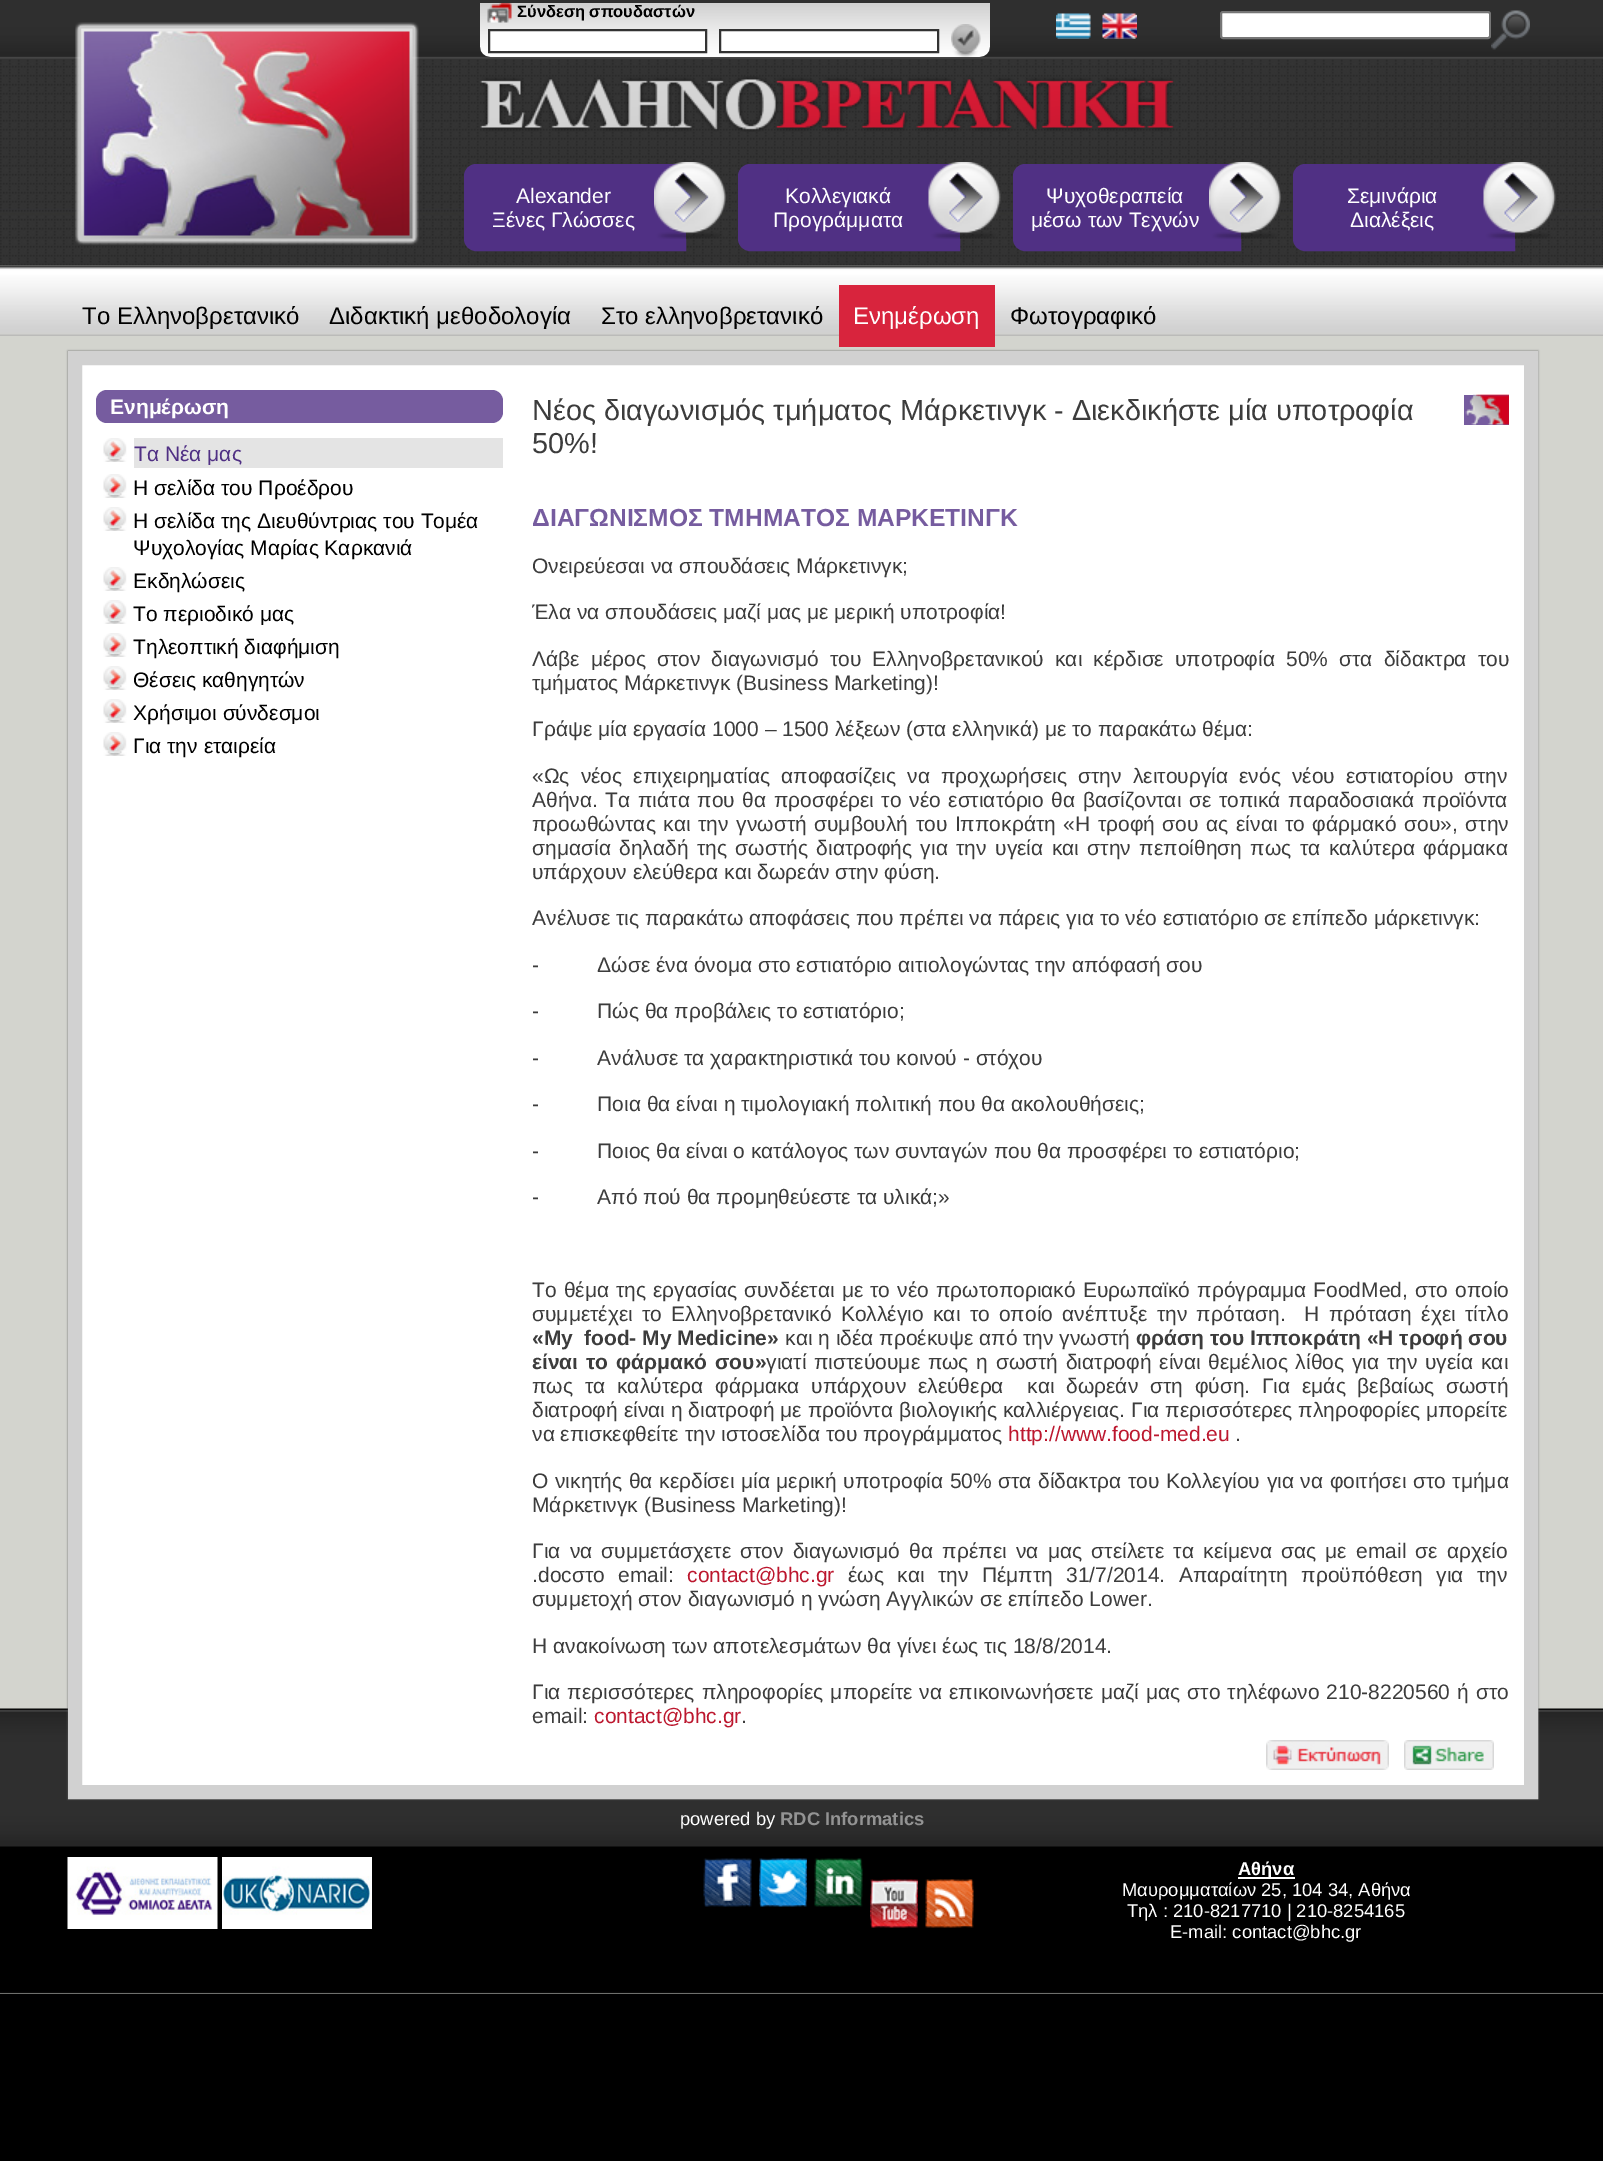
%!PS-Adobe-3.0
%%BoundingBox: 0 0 1603 2161
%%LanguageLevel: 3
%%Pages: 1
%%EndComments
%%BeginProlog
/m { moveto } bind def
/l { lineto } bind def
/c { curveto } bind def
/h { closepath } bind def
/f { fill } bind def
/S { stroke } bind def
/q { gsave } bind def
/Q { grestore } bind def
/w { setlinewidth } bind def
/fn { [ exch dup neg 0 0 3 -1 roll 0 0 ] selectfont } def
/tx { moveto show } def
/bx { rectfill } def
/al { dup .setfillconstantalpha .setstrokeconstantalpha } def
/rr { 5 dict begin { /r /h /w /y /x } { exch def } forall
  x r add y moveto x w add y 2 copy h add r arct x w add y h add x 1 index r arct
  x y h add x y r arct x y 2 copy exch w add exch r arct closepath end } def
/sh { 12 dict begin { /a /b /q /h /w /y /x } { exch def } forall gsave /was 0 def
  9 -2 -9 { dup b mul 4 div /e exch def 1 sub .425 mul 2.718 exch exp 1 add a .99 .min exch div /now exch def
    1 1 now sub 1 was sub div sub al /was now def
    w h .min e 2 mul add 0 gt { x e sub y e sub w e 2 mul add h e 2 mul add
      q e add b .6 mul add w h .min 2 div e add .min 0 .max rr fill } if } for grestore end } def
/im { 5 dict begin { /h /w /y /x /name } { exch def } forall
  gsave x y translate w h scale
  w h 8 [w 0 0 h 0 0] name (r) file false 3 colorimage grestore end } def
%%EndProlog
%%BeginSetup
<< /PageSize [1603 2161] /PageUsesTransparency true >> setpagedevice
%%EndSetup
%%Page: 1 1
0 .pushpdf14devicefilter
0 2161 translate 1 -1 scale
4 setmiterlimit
0 setgray
0 0 1603 2161 bx
0.827 0.831 0.808 setrgbcolor
0 265 1603 1729 bx
(image0.raw) 0 0 1603 266 im
(image1.raw) 480 3 510 54 im
(image2.raw) 487 3 25 20 im
/LiberationSans-Bold 16.5 fn
0 setgray
(Σύνδεση σπουδαστών) 517 17 tx
1 setgray
489 30 m 706 30 l 706 52 l 489 52 l h q f Q
0.2 setgray
2 w
S
1 setgray
720 30 m 938 30 l 938 52 l 720 52 l h q f Q
0.2 setgray
S
(image3.raw) 951 24 30 33 im
(image4.raw) 1056 13 35 26 im
(image5.raw) 1102 13 35 26 im
1 setgray
1221 12 269 26 2 rr q f Q
0.463 setgray
S
(image6.raw) 1491 10 39 40 im
(image7.raw) 75 22 344 223 im
(image8.raw) 480 76 694 56 im
0.314 0.188 0.518 setrgbcolor
476 165 m 685 165 l 685 250 l 476 250 l 470 250 465 245 465 239 c 465 176 l 465 170 470 165 476 165 c h q f Q
S
/LiberationSans-Regular 21 fn
1 setgray
(Alexander) 516 203 tx
(Ξένες Γλώσσες) 492 227 tx
(image9.raw) 654 162 72 77 im
0.314 0.188 0.518 setrgbcolor
750 165 m 959 165 l 959 250 l 750 250 l 744 250 739 245 739 239 c 739 176 l 739 170 744 165 750 165 c h q f Q
S
1 setgray
(Κολλεγιακά) 785 203 tx
(Προγράμματα) 773 227 tx
(image10.raw) 928 162 73 77 im
0.314 0.188 0.518 setrgbcolor
1025 165 m 1240 165 l 1240 250 l 1025 250 l 1019 250 1014 245 1014 239 c 1014 176 l 1014 170 1019 165 1025 165 c h q f Q
S
1 setgray
(Ψυχοθεραπεία) 1046 203 tx
(μέσω των Τεχνών) 1031 227 tx
(image11.raw) 1209 162 72 77 im
0.314 0.188 0.518 setrgbcolor
1305 165 m 1514 165 l 1514 250 l 1305 250 l 1299 250 1294 245 1294 239 c 1294 176 l 1294 170 1299 165 1305 165 c h q f Q
S
1 setgray
(Σεμινάρια) 1347 203 tx
(Διαλέξεις) 1350 227 tx
(image12.raw) 1483 162 73 77 im
(image13.raw) 0 265 1603 71 im
/LiberationSans-Regular 24 fn
0 setgray
(Το Ελληνοβρετανικό) 82 324 tx
(Διδακτική μεθοδολογία) 329 324 tx
(Στο ελληνοβρετανικό) 601 324 tx
0.847 0.141 0.239 setrgbcolor
839 285 156 62 bx
1 setgray
(Ενημέρωση) 853 324 tx
0 setgray
(Φωτογραφικό) 1010 324 tx
(image18.raw) 0 1708 1603 286 im
0.388 setgray
68 351 1470 1448 0 1 1 sh
1 setgray
75 358 m 1531 358 l 1531 1792 l 75 1792 l h q f Q
0.82 setgray
14 w
S
0.463 0.361 0.624 setrgbcolor
96 390 407 33 11 rr f
/LiberationSans-Bold 21 fn
1 setgray
(Ενημέρωση) 110 414 tx
(image14.raw) 103 438 24 24 im
0.894 setgray
134 438 369 30 bx
/LiberationSans-Regular 21 fn
0.314 0.188 0.518 setrgbcolor
(Τα Νέα μας) 134 461 tx
(image14.raw) 103 474 24 24 im
0 setgray
(Η σελίδα του Προέδρου) 133 495 tx
(image14.raw) 103 507 24 24 im
(Η σελίδα της Διευθύντριας του Τομέα) 133 528 tx
(Ψυχολογίας Μαρίας Καρκανιά) 133 555 tx
(image14.raw) 103 567 24 24 im
(Εκδηλώσεις) 133 588 tx
(image14.raw) 103 600 24 24 im
(Το περιοδικό μας) 133 621 tx
(image14.raw) 103 633 24 24 im
(Τηλεοπτική διαφήμιση) 133 654 tx
(image14.raw) 103 666 24 24 im
(Θέσεις καθηγητών) 133 687 tx
(image14.raw) 103 699 24 24 im
(Χρήσιμοι σύνδεσμοι) 133 720 tx
(image14.raw) 103 732 24 24 im
(Για την εταιρεία) 133 753 tx
0.463 0.361 0.624 setrgbcolor
1464 395 45 30 bx
(image15.raw) 1465 394 44 31 im
/LiberationSans-Regular 28.9 fn
0.235 setgray
(Νέος διαγωνισμός τμήματος Μάρκετινγκ - Διεκδικήστε μία υποτροφία) 532 420 tx
(50%!) 532 453 tx
/LiberationSans-Bold 24.6 fn
0.463 0.361 0.624 setrgbcolor
(ΔΙΑΓΩΝΙΣΜΟΣ ΤΜΗΜΑΤΟΣ ΜΑΡΚΕΤΙΝΓΚ) 532 526 tx
/LiberationSans-Regular 21 fn
0.235 setgray
(Ονειρεύεσαι να σπουδάσεις Μάρκετινγκ;) 532 573 tx
(Έλα να σπουδάσεις μαζί μας με μερική υποτροφία!) 532 619 tx
532 666 m 5.25 0 32 (Λάβε μέρος στον διαγωνισμό του Ελληνοβρετανικού και κέρδισε υποτροφία 50% στα δίδακτρα του) widthshow
(τμήματος Μάρκετινγκ \(Business Marketing\)!) 532 690 tx
(Γράψε μία εργασία 1000 – 1500 λέξεων \(στα ελληνικά\) με το παρακάτω θέμα:) 532 736 tx
532 783 m 5.25 0 32 («Ως νέος επιχειρηματίας αποφασίζεις να προχωρήσεις στην λειτουργία ενός νέου εστιατορίου στην) widthshow
532 807 m 1.75 0 32 (Αθήνα. Τα πιάτα που θα προσφέρει το νέο εστιατόριο θα βασίζονται σε τοπικά παραδοσιακά προϊόντα) widthshow
532 831 m 1.75 0 32 (προωθώντας και την γνωστή συμβουλή του Ιπποκράτη «Η τροφή σου ας είναι το φάρμακό σου», στην) widthshow
532 855 m 2.6 0 32 (σημασία δηλαδή της σωστής διατροφής για την υγεία και στην πεποίθηση πως τα καλύτερα φάρμακα) widthshow
(υπάρχουν ελεύθερα και δωρεάν στην φύση.) 532 879 tx
(Ανέλυσε τις παρακάτω αποφάσεις που πρέπει να πάρεις για το νέο εστιατόριο σε επίπεδο μάρκετινγκ:) 532 925 tx
(-          Δώσε ένα όνομα στο εστιατόριο αιτιολογώντας την απόφασή σου) 532 972 tx
(-          Πώς θα προβάλεις το εστιατόριο;) 532 1018 tx
(-          Ανάλυσε τα χαρακτηριστικά του κοινού - στόχου) 532 1065 tx
(-          Ποια θα είναι η τιμολογιακή πολιτική που θα ακολουθήσεις;) 532 1111 tx
(-          Ποιος θα είναι ο κατάλογος των συνταγών που θα προσφέρει το εστιατόριο;) 532 1158 tx
(-          Από πού θα προμηθεύεστε τα υλικά;») 532 1204 tx
532 1297 m 1.25 0 32 (To θέμα της εργασίας συνδέεται με το νέο πρωτοποριακό Ευρωπαϊκό πρόγραμμα FoodMed, στο οποίο) widthshow
532 1321 m 3.5 0 32 (συμμετέχει το Ελληνοβρετανικό Κολλέγιο και το οποίο ανέπτυξε την πρόταση.  Η πρόταση έχει τίτλο) widthshow
/LiberationSans-Bold 21 fn
(«My) 532 1345 tx
(food- Μy Μedicine») 584 1345 tx
/LiberationSans-Regular 21 fn
(και η ιδέα προέκυψε από την γνωστή) 785 1345 tx
/LiberationSans-Bold 21 fn
(φράση του Ιπποκράτη «Η τροφή σου) 1136 1345 tx
532 1369 m 2 0 32 (είναι το φάρμακό σου») widthshow
/LiberationSans-Regular 21 fn
766 1369 m 1.9 0 32 (γιατί πιστεύουμε πως η σωστή διατροφή είναι θεμέλιος λίθος για την υγεία και) widthshow
532 1393 m 5.9 0 32 (πως τα καλύτερα φάρμακα υπάρχουν ελεύθερα  και δωρεάν στη φύση. Για εμάς βεβαίως σωστή) widthshow
532 1417 m 0.1 0 32 (διατροφή είναι η διατροφή με προϊόντα βιολογικής καλλιέργειας. Για περισσότερες πληροφορίες μπορείτε) widthshow
(να επισκεφθείτε την ιστοσελίδα του προγράμματος) 532 1441 tx
0.737 0.09 0.18 setrgbcolor
(http://www.food-med.eu) 1008 1441 tx
0.235 setgray
(.) 1235 1441 tx
532 1488 m 0.7 0 32 (Ο νικητής θα κερδίσει μία μερική υποτροφία 50% στα δίδακτρα του Κολλεγίου για να φοιτήσει στο τμήμα) widthshow
(Μάρκετινγκ \(Business Marketing\)!) 532 1512 tx
532 1558 m 3.4 0 32 (Για να συμμετάσχετε στον διαγωνισμό θα πρέπει να μας στείλετε τα κείμενα σας με email σε αρχείο) widthshow
532 1582 m 7.5 0 32 (.docστο email:) widthshow
0.737 0.09 0.18 setrgbcolor
(contact@bhc.gr) 687 1582 tx
0.235 setgray
848 1582 m 7.5 0 32 (έως και την Πέμπτη 31/7/2014. Απαραίτητη προϋπόθεση για την) widthshow
(συμμετοχή στον διαγωνισμό η γνώση Αγγλικών σε επίπεδο Lower.) 532 1606 tx
(Η ανακοίνωση των αποτελεσμάτων θα γίνει έως τις 18/8/2014.) 532 1653 tx
532 1699 m 1.25 0 32 (Για περισσότερες πληροφορίες μπορείτε να επικοινωνήσετε μαζί μας στο τηλέφωνο 210-8220560 ή στο) widthshow
(email:) 532 1723 tx
0.737 0.09 0.18 setrgbcolor
(contact@bhc.gr) 594 1723 tx
0.235 setgray
(.) 741 1723 tx
(image16.raw) 1266 1740 123 30 im
(image17.raw) 1404 1740 90 30 im
/LiberationSans-Regular 18.4 fn
1 setgray
(powered by) 680 1825 tx
/LiberationSans-Bold 18.4 fn
0.576 setgray
(RDC Informatics) 780 1825 tx
(image19.raw) 67 1857 151 72 im
(image20.raw) 222 1857 150 72 im
(image21.raw) 703 1858 49 49 im
(image22.raw) 759 1858 48 49 im
(image23.raw) 814 1858 49 49 im
(image24.raw) 870 1879 48 49 im
(image25.raw) 925 1879 49 49 im
1 setgray
1238 1877 57 2 bx
(Αθήνα) 1238 1875 tx
/LiberationSans-Regular 18.4 fn
(Μαυρομματαίων 25, 104 34, Αθήνα) 1122 1896 tx
(Τηλ : 210-8217710 | 210-8254165) 1127 1917 tx
(E-mail: contact@bhc.gr) 1170 1938 tx
.poppdf14devicefilter showpage
%%EOF
